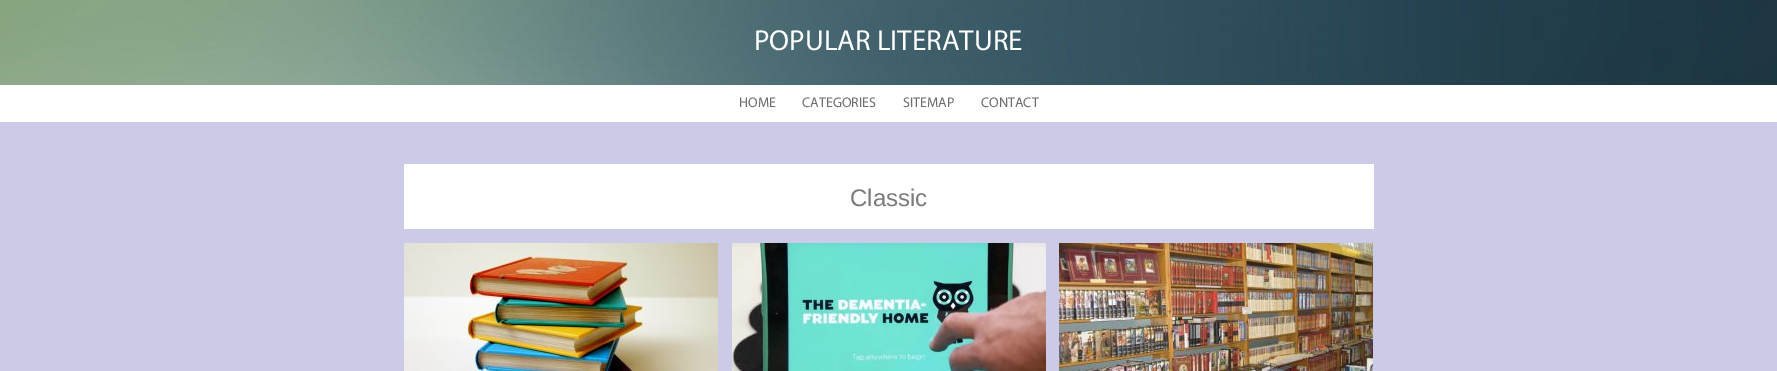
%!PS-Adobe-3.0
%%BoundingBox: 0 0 1777 371
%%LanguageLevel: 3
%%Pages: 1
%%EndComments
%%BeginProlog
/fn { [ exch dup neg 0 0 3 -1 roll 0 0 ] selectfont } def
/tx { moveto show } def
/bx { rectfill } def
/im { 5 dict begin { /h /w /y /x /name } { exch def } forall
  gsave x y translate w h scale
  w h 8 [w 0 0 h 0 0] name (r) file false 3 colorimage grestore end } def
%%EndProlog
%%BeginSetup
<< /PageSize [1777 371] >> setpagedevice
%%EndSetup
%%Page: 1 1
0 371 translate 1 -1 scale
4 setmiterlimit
0.796 0.796 0.906 setrgbcolor
0 0 1777 371 bx
(image0.raw) 0 0 1777 85 im
/Myriad-Regular 29 fn
1 setgray
(POPULAR LITERATURE) 754 50 tx
0 85 1777 37 bx
/Myriad-Regular 14 fn
0.427 0.427 0.435 setrgbcolor
(HOME) 739 107 tx
(CATEGORIES) 802 107 tx
(SITEMAP) 903 107 tx
(CONTACT) 981 107 tx
1 setgray
404 164 970 65 bx
/LiberationSans-Regular 24 fn
0.482 setgray
(Classic) 850 206 tx
(image1.raw) 404 243 314 128 im
(image2.raw) 732 243 314 128 im
(image3.raw) 1059 243 314 128 im
showpage
%%EOF
